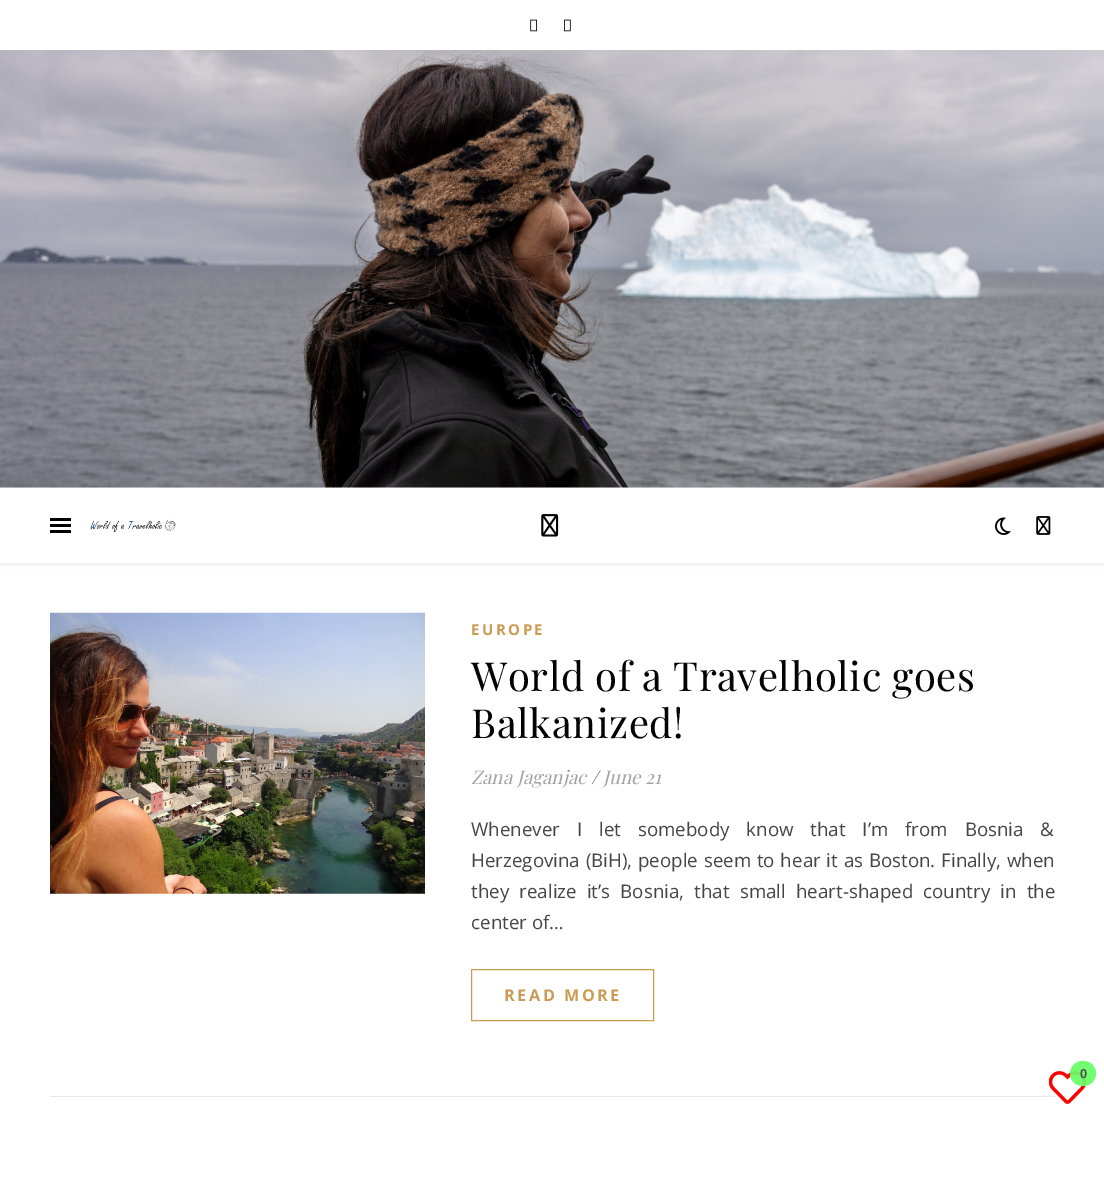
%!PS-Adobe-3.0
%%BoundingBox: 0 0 1104 1186
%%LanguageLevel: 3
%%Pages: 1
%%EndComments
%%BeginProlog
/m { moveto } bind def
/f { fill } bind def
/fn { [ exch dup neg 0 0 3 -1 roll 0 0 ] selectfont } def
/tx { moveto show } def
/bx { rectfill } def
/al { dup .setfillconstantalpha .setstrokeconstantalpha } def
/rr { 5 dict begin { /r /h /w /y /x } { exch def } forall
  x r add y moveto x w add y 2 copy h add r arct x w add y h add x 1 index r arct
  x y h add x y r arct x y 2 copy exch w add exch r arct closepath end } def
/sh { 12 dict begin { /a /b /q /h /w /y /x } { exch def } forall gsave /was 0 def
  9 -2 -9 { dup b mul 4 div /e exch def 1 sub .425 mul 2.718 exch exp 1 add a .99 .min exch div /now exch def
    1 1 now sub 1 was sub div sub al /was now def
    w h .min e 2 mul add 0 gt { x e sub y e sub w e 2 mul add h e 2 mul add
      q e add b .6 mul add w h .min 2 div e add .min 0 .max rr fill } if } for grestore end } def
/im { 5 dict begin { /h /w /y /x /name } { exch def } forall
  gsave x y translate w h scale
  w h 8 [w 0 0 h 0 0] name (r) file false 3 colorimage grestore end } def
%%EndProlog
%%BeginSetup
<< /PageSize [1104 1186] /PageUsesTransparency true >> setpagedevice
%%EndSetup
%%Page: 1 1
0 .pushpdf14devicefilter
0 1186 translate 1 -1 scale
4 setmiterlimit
1 setgray
0 0 1104 1186 bx
(image0.raw) 530 19 7 13 im
(image1.raw) 564 19 7 13 im
(image2.raw) 0 50 1104 438 im
0 setgray
0 489 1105 75 0 3 0.1 sh
1 setgray
0 488 1104 75 bx
0 setgray
50 518 21 3 bx
50 524 21 3 bx
50 530 21 3 bx
(image3.raw) 90 519 86 13 im
(image4.raw) 541 514 18 23 im
(image5.raw) 995 517 16 18 im
(image6.raw) 1036 516 15 19 im
0.91 setgray
50 1096 1005 1 bx
(image7.raw) 50 612 375 282 im
/OpenSans-Bold 15 fn
0.792 0.608 0.322 setrgbcolor
471 635 m 2.5 0 (EUROPE) ashow
/PlayfairDisplay-Regular 40 fn
0.012 setgray
471 691 m 0.6 0 (World of a Travelholic goes) ashow
471 738 m 0.6 0 (Balkanized!) ashow
/PlayfairDisplay-Italic 18.75 fn
0.631 setgray
(Zana Jaganjac) 471 784 tx
0.275 setgray
(/) 591 784 tx
0.631 setgray
(June 21) 603 784 tx
/OpenSans-Regular 18.75 fn
0.275 setgray
471 836 m 12 0 32 (Whenever I let somebody know that I’m from Bosnia &) widthshow
471 867 m 0.9 0 32 (Herzegovina \(BiH\), people seem to hear it as Boston. Finally, when) widthshow
471 898 m 5.25 0 32 (they realize it’s Bosnia, that small heart-shaped country in the) widthshow
(center of…) 471 929 tx
0.792 0.608 0.322 setrgbcolor
471.5 969.5 182 51 rectstroke
/OpenSans-Bold 16.25 fn
504 1001 m 2.5 0 (READ MORE) ashow
(image8.raw) 1049 1071 37 33 im
0.92 al
0.396 1 0.396 setrgbcolor
1070 1061 26 25 12.5 rr f
/LiberationSans-Bold 13 fn
1 al
0.314 setgray
(0) 1080 1078 tx
.poppdf14devicefilter showpage
%%EOF
